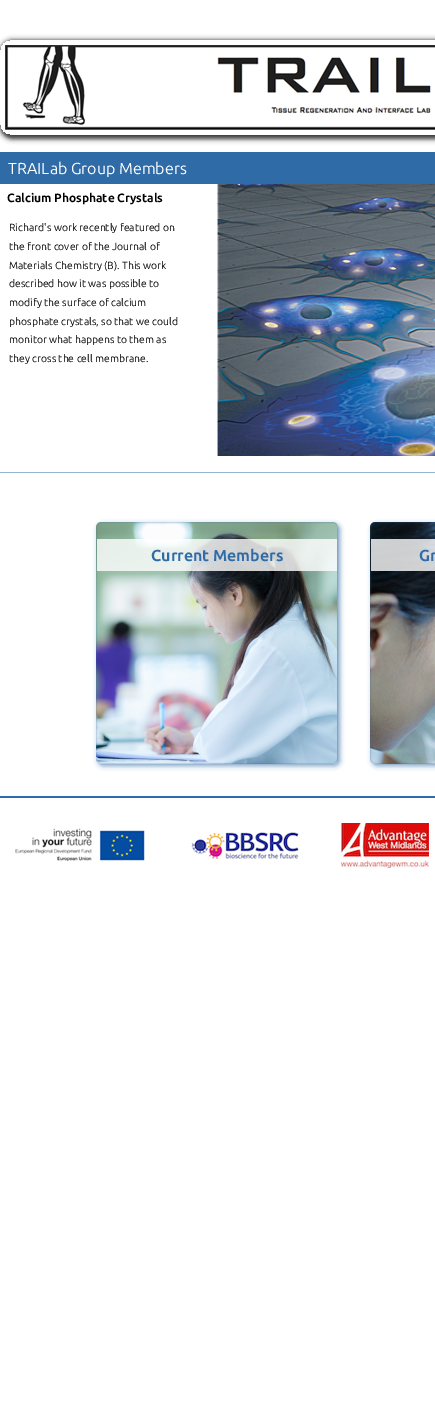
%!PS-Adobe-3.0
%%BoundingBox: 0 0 435 1415
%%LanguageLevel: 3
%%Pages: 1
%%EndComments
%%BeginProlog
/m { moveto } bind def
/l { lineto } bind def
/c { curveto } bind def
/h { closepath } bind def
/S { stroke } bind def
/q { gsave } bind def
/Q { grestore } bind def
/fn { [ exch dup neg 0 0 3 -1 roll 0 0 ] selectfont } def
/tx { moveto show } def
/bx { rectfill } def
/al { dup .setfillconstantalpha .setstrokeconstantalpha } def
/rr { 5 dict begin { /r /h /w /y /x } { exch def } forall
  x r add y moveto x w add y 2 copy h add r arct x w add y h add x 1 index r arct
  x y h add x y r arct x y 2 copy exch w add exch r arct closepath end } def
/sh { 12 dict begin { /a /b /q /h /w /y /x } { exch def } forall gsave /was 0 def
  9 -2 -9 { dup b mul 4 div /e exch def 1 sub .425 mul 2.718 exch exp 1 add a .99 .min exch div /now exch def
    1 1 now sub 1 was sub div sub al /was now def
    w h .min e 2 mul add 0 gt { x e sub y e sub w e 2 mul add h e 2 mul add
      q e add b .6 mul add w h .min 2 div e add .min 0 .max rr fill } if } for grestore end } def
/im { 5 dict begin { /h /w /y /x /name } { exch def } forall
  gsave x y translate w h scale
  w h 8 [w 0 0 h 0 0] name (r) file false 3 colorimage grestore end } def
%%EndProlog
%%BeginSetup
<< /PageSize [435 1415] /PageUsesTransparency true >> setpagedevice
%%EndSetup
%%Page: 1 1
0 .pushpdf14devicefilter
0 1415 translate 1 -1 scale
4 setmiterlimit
1 setgray
0 0 435 1415 bx
q
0 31 m 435 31 l 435 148 l 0 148 l h 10 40 m 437 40 l 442.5 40 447 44.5 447 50 c 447 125 l 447 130.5 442.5 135 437 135 c 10 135 l 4.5 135 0 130.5 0 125 c 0 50 l 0 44.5 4.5 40 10 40 c h eoclip newpath
0.2 setgray
0 40 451 99 12 2.5 1 sh
Q
(image0.raw) 5 45 430 85 im
0.18 0.42 0.655 setrgbcolor
0 152 435 32 bx
/Ubuntu-Regular 16 fn
1 setgray
(TRAILab Group Members) 8 174 tx
/Ubuntu-Bold 12 fn
0 setgray
(Calcium Phosphate Crystals) 7 202 tx
/Ubuntu-Regular 10.4 fn
(Richard's work recently featured on) 9 231 tx
(the front cover of the Journal of) 9 250 tx
(Materials Chemistry \(B\). This work) 9 269 tx
(described how it was possible to) 9 287 tx
(modify the surface of calcium) 9 306 tx
(phosphate crystals, so that we could) 9 325 tx
(monitor what happens to them as) 9 343 tx
(they cross the cell membrane.) 9 362 tx
(image1.raw) 217 184 218 272 im
0.592 0.71 0.827 setrgbcolor
0 472 435 1 bx
0.192 0.424 0.647 setrgbcolor
98 524 242 242 5 2.5 0.6 sh
(image2.raw) 96 522 241 242 im
0.2 al
96.5 522.5 241 241 4.5 rr S
0.8 al
1 setgray
97 539 240 32 bx
/Ubuntu-Bold 16 fn
1 al
0.18 0.42 0.655 setrgbcolor
(Current Members) 151 561 tx
0.192 0.424 0.647 setrgbcolor
372 524 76 242 5 2.5 0.6 sh
(image3.raw) 370 522 65 242 im
0.2 al
370.5 522.5 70 241 4.5 rr S
0.8 al
1 setgray
371 539 64 32 bx
1 al
0.18 0.42 0.655 setrgbcolor
(Gr) 419 561 tx
0 796 435 2 bx
(image4.raw) 15 828 130 34 im
(image5.raw) 191 832 108 27 im
(image6.raw) 341 823 88 45 im
.poppdf14devicefilter showpage
%%EOF
